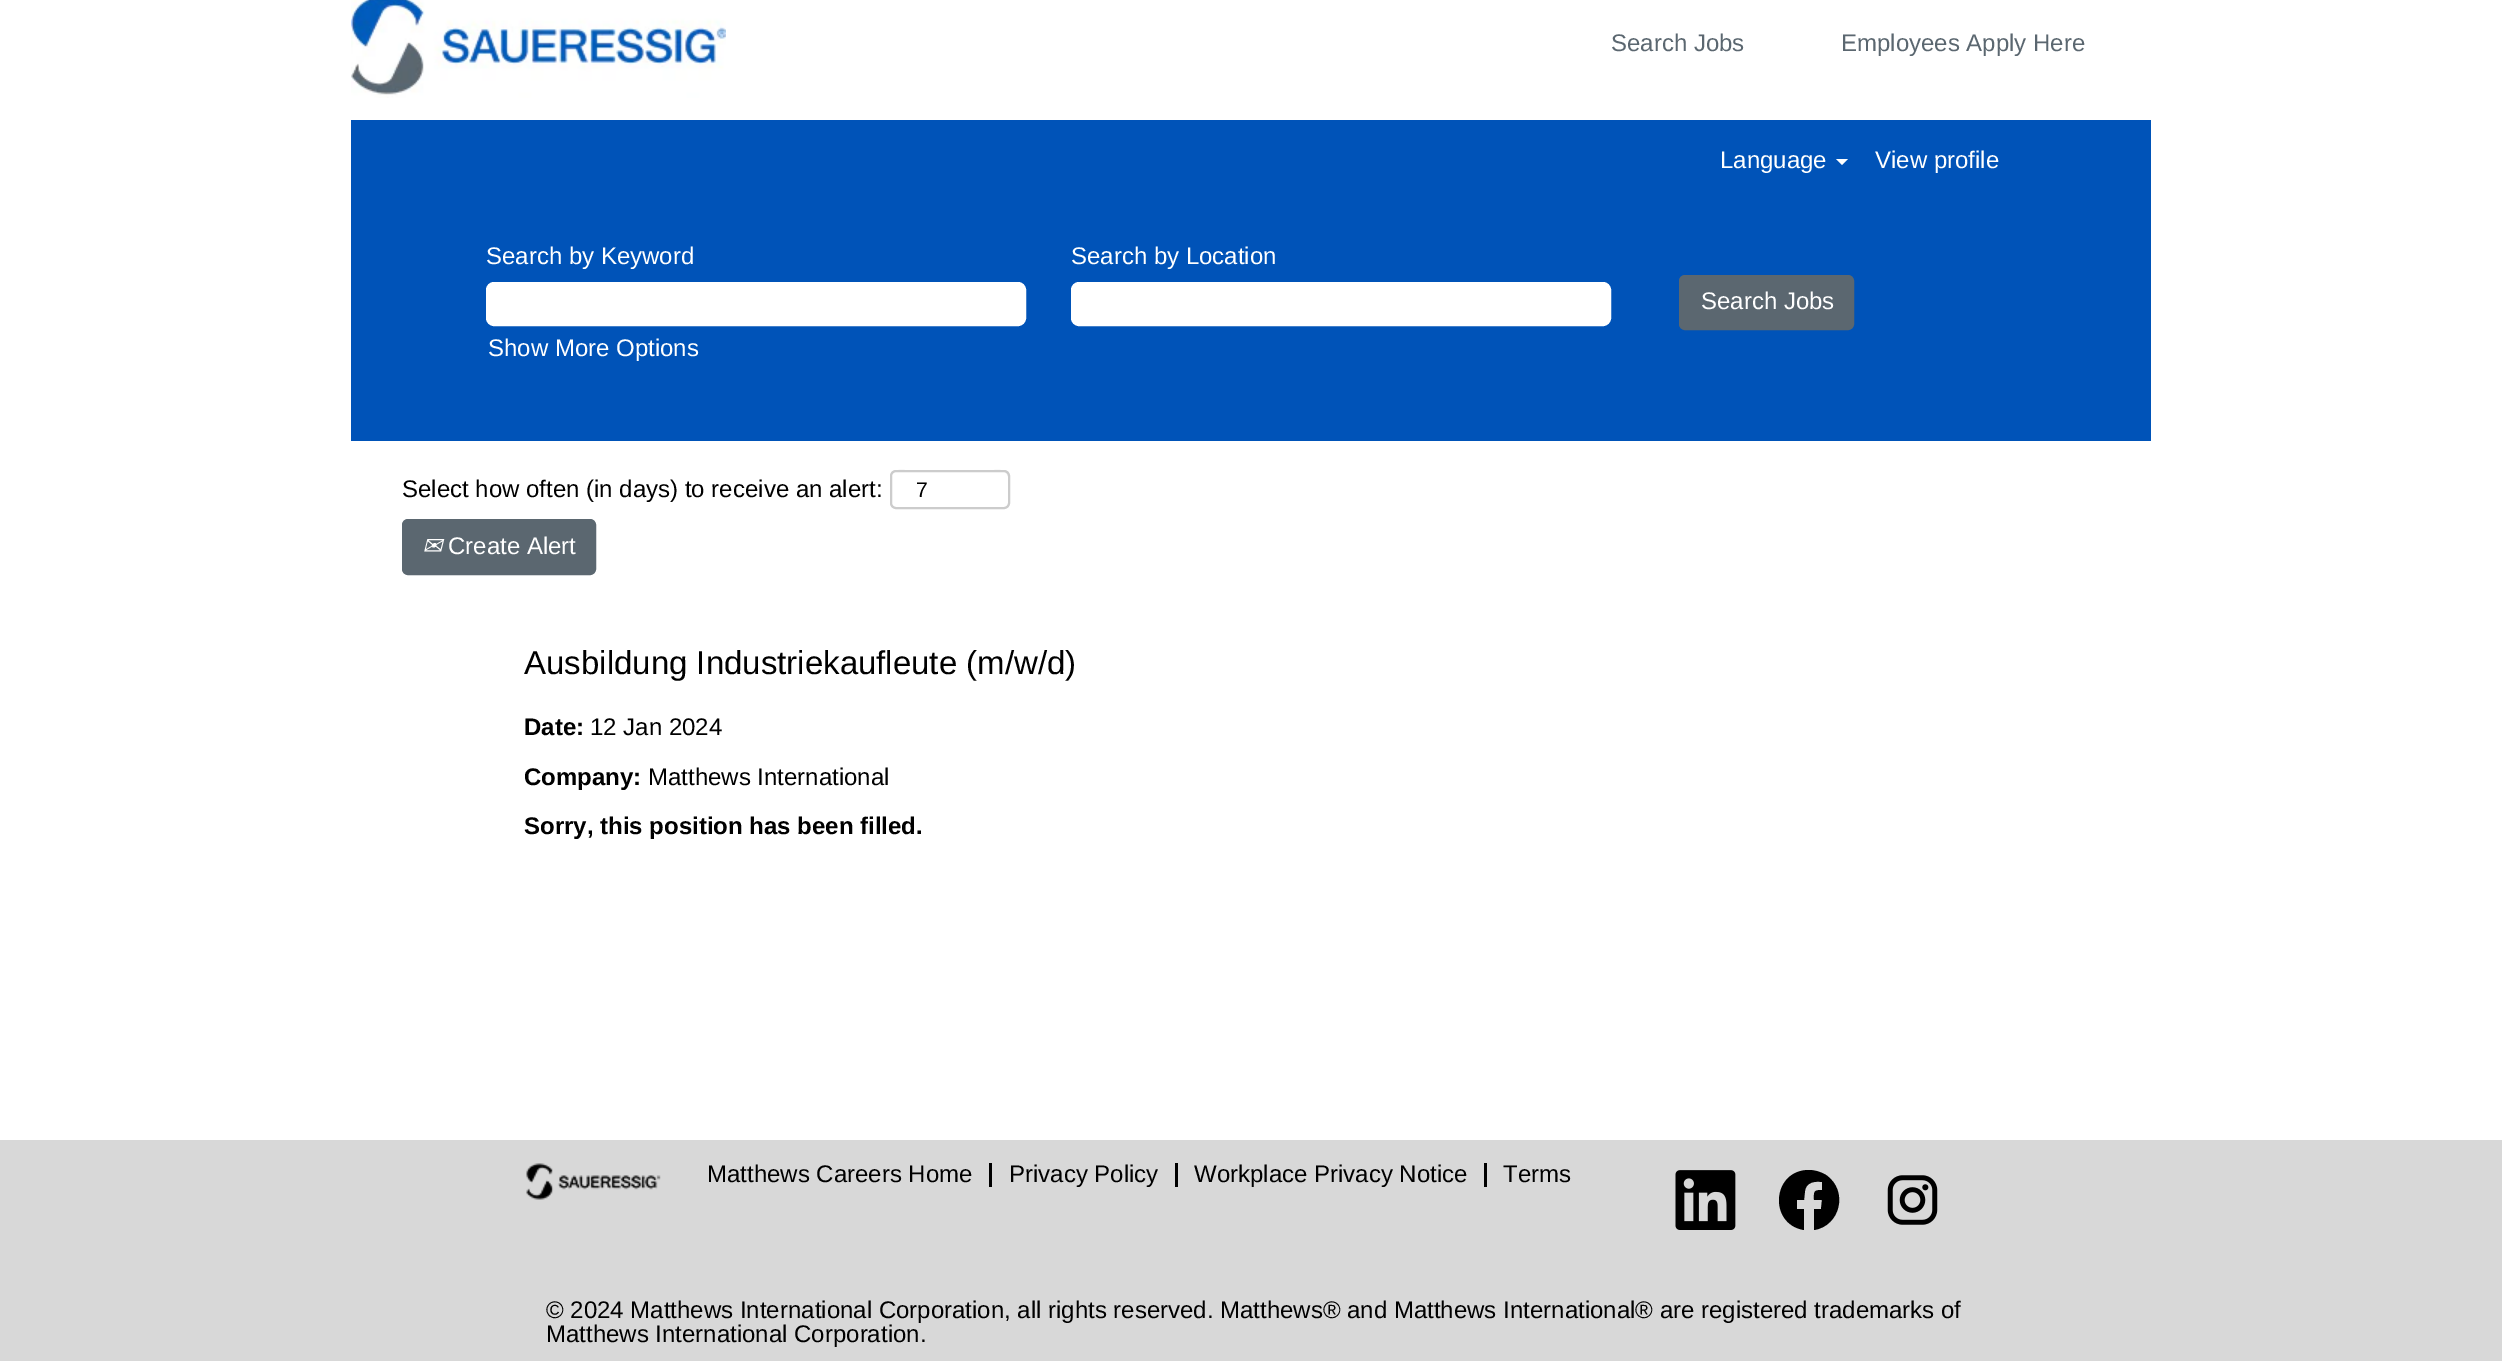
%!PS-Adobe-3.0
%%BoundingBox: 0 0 2502 1361
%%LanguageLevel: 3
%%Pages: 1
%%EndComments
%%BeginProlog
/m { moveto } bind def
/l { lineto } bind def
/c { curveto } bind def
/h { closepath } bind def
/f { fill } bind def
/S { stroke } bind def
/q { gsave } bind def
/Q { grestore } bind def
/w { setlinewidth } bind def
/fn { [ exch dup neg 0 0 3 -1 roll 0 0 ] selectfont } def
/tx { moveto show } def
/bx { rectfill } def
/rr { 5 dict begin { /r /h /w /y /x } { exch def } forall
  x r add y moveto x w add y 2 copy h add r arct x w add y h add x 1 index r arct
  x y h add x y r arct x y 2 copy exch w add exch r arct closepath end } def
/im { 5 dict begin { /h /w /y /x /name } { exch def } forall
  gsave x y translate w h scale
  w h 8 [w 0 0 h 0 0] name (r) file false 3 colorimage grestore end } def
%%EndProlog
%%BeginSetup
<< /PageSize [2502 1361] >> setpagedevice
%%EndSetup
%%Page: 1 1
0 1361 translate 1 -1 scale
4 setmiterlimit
1 setgray
0 0 2502 1361 bx
(image0.raw) 351 0 375 98 im
/LiberationSans-Regular 24 fn
0.357 0.404 0.439 setrgbcolor
(Search Jobs) 1611 51 tx
(Employees Apply Here) 1841 51 tx
0 0.325 0.722 setrgbcolor
351 120 1800 321 bx
1 setgray
(Language) 1720 168 tx
1836 159 m 1848 159 l 1842 165 l h f
(View profile) 1875 168 tx
(Search by Keyword) 486 264 tx
487.5 283.5 537 41 6.5 rr q f Q
3 w
S
(Search by Location) 1071 264 tx
1072.5 283.5 537 41 6.5 rr q f Q
S
(Show More Options) 488 356 tx
0.357 0.404 0.439 setrgbcolor
1680 276 173 53 5 rr q f Q
2 w
S
1 setgray
(Search Jobs) 1701 309 tx
0 setgray
(Select how often \(in days\) to receive an alert:) 402 497 tx
0.925 setgray
896 472 m 1004 472 l 1006 472 1008 475 1008 477 c 1008 466 990 471 985 471 c 914 471 l 909 471 891 466 891 477 c 891 475 893 472 896 472 c h f
0.8 setgray
891 471 118 37 5 rr S
/LiberationSans-Regular 21 fn
0 setgray
(7) 916 497 tx
0.357 0.404 0.439 setrgbcolor
403 520 192 54 5 rr q f Q
S
/DejaVuSans-Italic 24 fn
1 setgray
(✉) 422 554 tx
/LiberationSans-Regular 24 fn
(Create Alert) 448 554 tx
/LiberationSans-Regular 33 fn
0 setgray
(Ausbildung Industriekaufleute \(m/w/d\)) 524 674 tx
/LiberationSans-Bold 24 fn
(Date:) 524 735 tx
/LiberationSans-Regular 24 fn
(12 Jan 2024) 590 735 tx
/LiberationSans-Bold 24 fn
(Company:) 524 785 tx
/LiberationSans-Regular 24 fn
(Matthews International) 648 785 tx
/LiberationSans-Bold 24 fn
(Sorry, this position has been filled.) 524 834 tx
0.847 setgray
0 1140 2502 221 bx
(image1.raw) 526 1163 135 37 im
0 setgray
989 1163 3 24 bx
/LiberationSans-Regular 24 fn
(Matthews Careers Home) 707 1182 tx
1175 1163 3 24 bx
(Privacy Policy) 1009 1182 tx
1484 1163 3 24 bx
(Workplace Privacy Notice) 1194 1182 tx
(Terms) 1503 1182 tx
(image2.raw) 1675 1170 61 60 im
1809 1170 m 1772 1170 1768 1224 1804 1230 c 1804 1209 l 1797 1209 l 1797 1200 l 1804 1200 l 1805 1191 l 1806 1182 1815 1181 1822 1182 c 1822 1190 l 1813 1190 1814 1192 1814 1200 c 1822 1200 l 1821 1209 l 1814 1209 l 1814 1230 l 1840 1226 1849 1191 1826 1175 c 1821 1172 1815 1170 1809 1170 c h f
(image3.raw) 1887 1175 51 50 im
(© 2024 Matthews International Corporation, all rights reserved. Matthews® and Matthews International® are registered trademarks of) 546 1318 tx
(Matthews International Corporation.) 546 1342 tx
showpage
%%EOF
